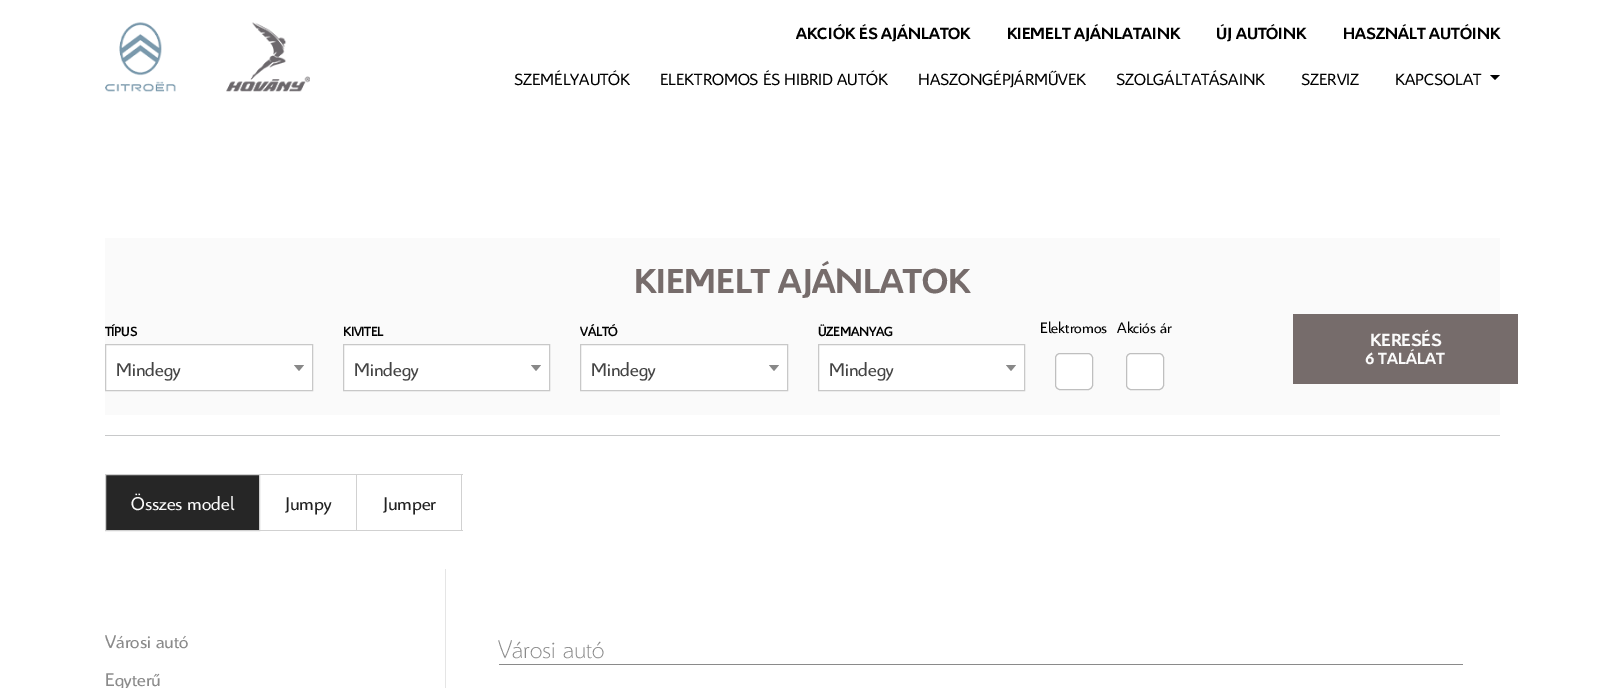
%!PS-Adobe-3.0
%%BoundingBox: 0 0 1604 688
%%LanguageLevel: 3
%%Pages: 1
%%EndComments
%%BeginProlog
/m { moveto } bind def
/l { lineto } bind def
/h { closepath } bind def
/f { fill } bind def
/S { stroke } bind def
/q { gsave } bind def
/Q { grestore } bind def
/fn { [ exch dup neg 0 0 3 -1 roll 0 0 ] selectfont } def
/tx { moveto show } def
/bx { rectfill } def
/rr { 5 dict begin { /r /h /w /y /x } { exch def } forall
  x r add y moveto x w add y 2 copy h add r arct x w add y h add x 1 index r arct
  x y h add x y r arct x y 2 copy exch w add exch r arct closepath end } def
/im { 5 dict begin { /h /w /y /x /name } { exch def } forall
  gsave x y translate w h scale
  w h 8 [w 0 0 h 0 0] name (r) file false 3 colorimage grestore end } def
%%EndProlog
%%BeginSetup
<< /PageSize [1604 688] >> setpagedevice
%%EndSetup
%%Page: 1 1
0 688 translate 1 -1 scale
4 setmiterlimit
1 setgray
0 0 1604 688 bx
(image0.raw) 105 22 71 70 im
(image1.raw) 226 22 84 70 im
/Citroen-Bold 17.5 fn
0 setgray
(AKCIÓK ÉS AJÁNLATOK) 796 39 tx
(KIEMELT AJÁNLATAINK) 1007 39 tx
(ÚJ AUTÓINK) 1216 39 tx
(HASZNÁLT AUTÓINK) 1343 39 tx
/Citroen-Regular 17.5 fn
(SZEMÉLYAUTÓK) 514 85 tx
(ELEKTROMOS ÉS HIBRID AUTÓK) 660 85 tx
(HASZONGÉPJÁRMŰVEK) 918 85 tx
(SZOLGÁLTATÁSAINK) 1116 85 tx
(SZERVIZ) 1301 85 tx
(KAPCSOLAT) 1395 85 tx
1490 75 m 1500 75 l 1495 80 l h f
0.98 setgray
105 238 1395 177 bx
/Citroen-Bold 37.5 fn
0.463 0.424 0.42 setrgbcolor
(KIEMELT AJÁNLATOK) 634 293 tx
/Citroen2-Bold 13.75 fn
0 setgray
(TÍPUS) 105 336 tx
1 setgray
105.5 344.5 m 312.5 344.5 l 312.5 390.5 l 105.5 390.5 l h q f Q
0.784 setgray
S
/Citroen-Regular 20 fn
0.267 setgray
(Mindegy) 116 376 tx
0.533 setgray
294 365 m 304 365 l 299 371 l h f
/Citroen2-Bold 13.75 fn
0 setgray
(KIVITEL) 343 336 tx
1 setgray
343.5 344.5 m 549.5 344.5 l 549.5 390.5 l 343.5 390.5 l h q f Q
0.784 setgray
S
/Citroen-Regular 20 fn
0.267 setgray
(Mindegy) 354 376 tx
0.533 setgray
531 365 m 541 365 l 536 371 l h f
/Citroen2-Bold 13.75 fn
0 setgray
(VÁLTÓ) 580 336 tx
1 setgray
580.5 344.5 m 787.5 344.5 l 787.5 390.5 l 580.5 390.5 l h q f Q
0.784 setgray
S
/Citroen-Regular 20 fn
0.267 setgray
(Mindegy) 591 376 tx
0.533 setgray
769 365 m 779 365 l 774 371 l h f
/Citroen2-Bold 13.75 fn
0 setgray
(ÜZEMANYAG) 818 336 tx
1 setgray
818.5 344.5 m 1024.5 344.5 l 1024.5 390.5 l 818.5 390.5 l h q f Q
0.784 setgray
S
/Citroen-Regular 20 fn
0.267 setgray
(Mindegy) 829 376 tx
0.533 setgray
1006 365 m 1016 365 l 1011 371 l h f
/Citroen-Regular 16.25 fn
0 setgray
(Elektromos) 1040 333 tx
1 setgray
1055.5 353.5 37 36 4.5 rr q f Q
0.749 setgray
S
0 setgray
(Akciós ár) 1117 333 tx
1 setgray
1126.5 353.5 37 36 4.5 rr q f Q
0.749 setgray
S
0.463 0.424 0.42 setrgbcolor
1293 314 225 70 bx
/Citroen-Bold 19 fn
0.98 setgray
(KERESÉS) 1370 346 tx
/Citroen-Bold 17.5 fn
(6 TALÁLAT) 1365 364 tx
0.784 0.788 0.792 setrgbcolor
105 435 1395 1 bx
0.149 setgray
105.5 474.5 m 259.5 474.5 l 259.5 530.5 l 105.5 530.5 l h q f Q
0.82 setgray
S
/Citroen-Regular 20 fn
0.98 setgray
(Összes model) 131 510 tx
0.82 setgray
260 474 203 1 bx
356 474 1 57 bx
260 530 98 1 bx
0.133 setgray
(Jumpy) 285 510 tx
0.82 setgray
461 474 1 57 bx
358 530 105 1 bx
0.133 setgray
(Jumper) 383 510 tx
0.898 setgray
445 569 1 119 bx
0.541 setgray
(Városi autó) 105 648 tx
(Egyterű) 105 686 tx
499 664 964 1 bx
/Citroen-Light 27.5 fn
(Városi autó) 498 658 tx
showpage
%%EOF
